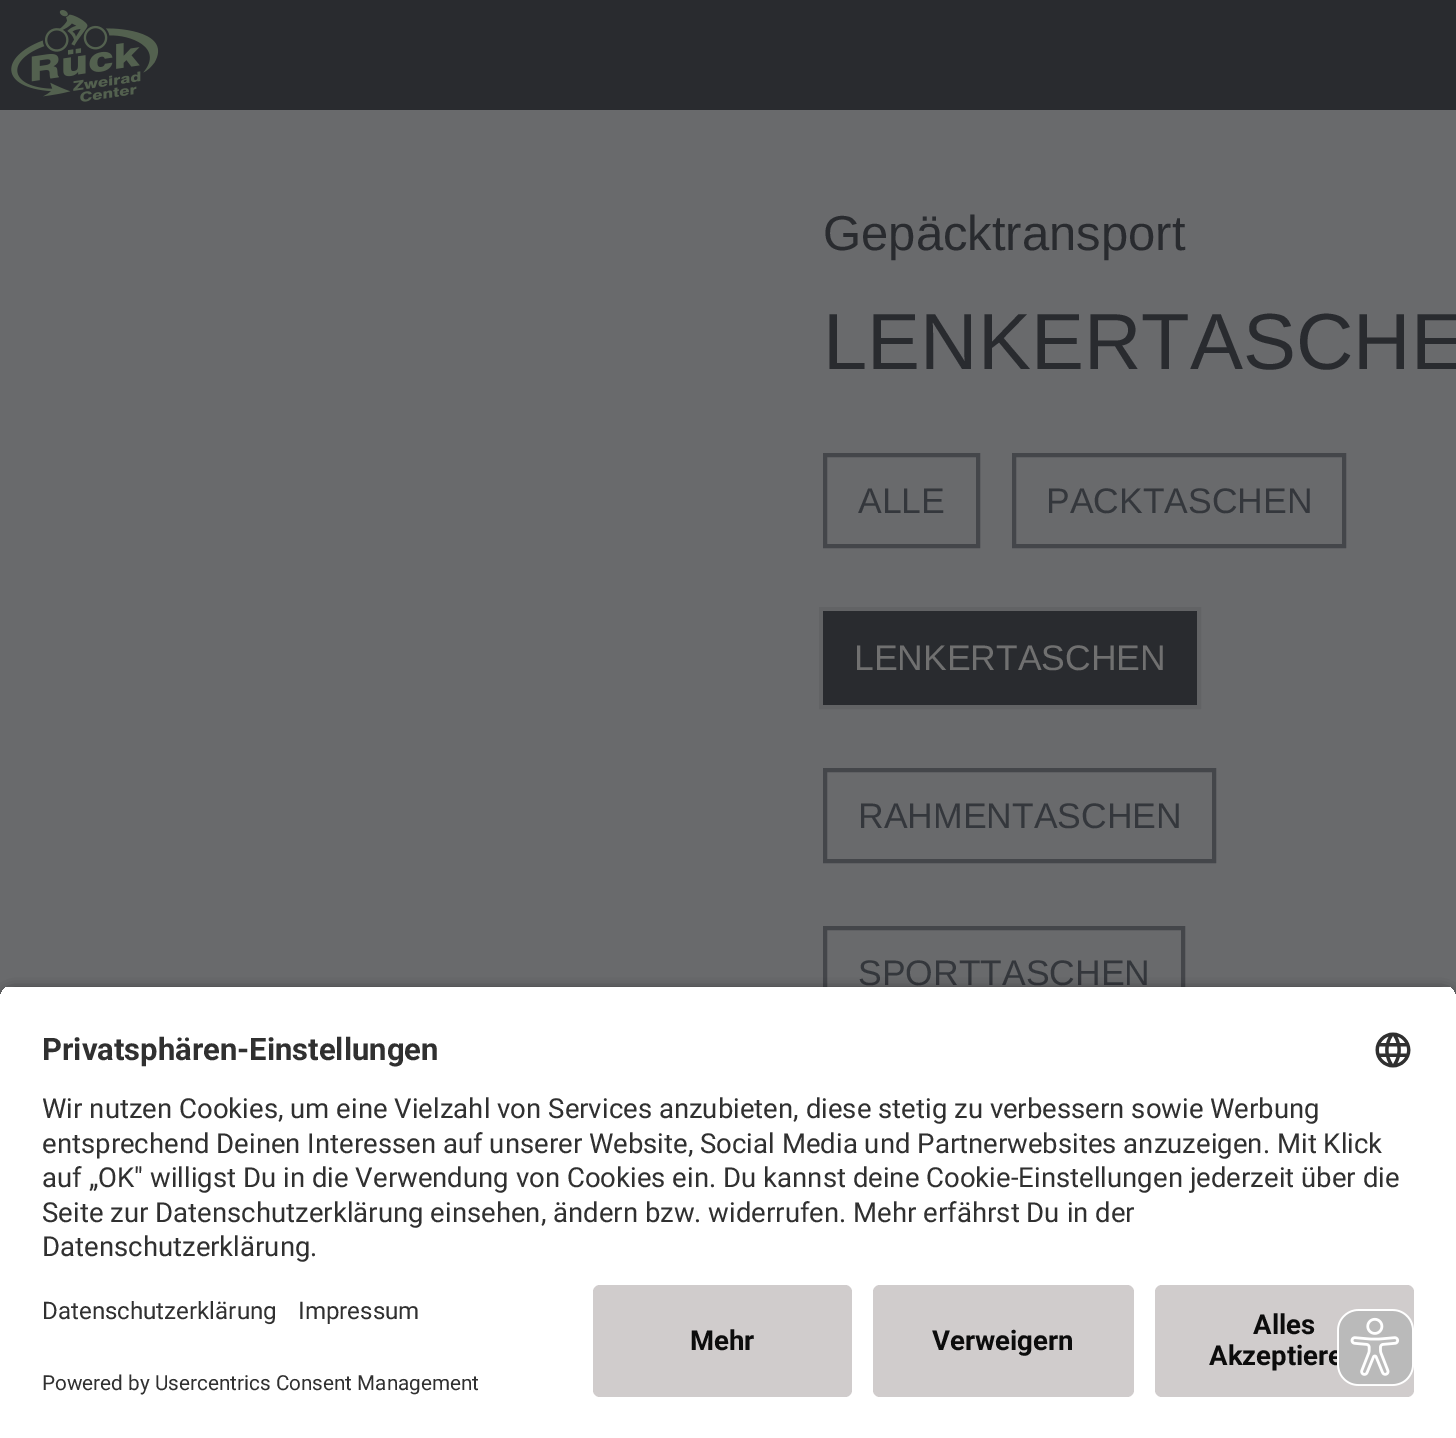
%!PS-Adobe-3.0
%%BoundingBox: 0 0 1456 1438
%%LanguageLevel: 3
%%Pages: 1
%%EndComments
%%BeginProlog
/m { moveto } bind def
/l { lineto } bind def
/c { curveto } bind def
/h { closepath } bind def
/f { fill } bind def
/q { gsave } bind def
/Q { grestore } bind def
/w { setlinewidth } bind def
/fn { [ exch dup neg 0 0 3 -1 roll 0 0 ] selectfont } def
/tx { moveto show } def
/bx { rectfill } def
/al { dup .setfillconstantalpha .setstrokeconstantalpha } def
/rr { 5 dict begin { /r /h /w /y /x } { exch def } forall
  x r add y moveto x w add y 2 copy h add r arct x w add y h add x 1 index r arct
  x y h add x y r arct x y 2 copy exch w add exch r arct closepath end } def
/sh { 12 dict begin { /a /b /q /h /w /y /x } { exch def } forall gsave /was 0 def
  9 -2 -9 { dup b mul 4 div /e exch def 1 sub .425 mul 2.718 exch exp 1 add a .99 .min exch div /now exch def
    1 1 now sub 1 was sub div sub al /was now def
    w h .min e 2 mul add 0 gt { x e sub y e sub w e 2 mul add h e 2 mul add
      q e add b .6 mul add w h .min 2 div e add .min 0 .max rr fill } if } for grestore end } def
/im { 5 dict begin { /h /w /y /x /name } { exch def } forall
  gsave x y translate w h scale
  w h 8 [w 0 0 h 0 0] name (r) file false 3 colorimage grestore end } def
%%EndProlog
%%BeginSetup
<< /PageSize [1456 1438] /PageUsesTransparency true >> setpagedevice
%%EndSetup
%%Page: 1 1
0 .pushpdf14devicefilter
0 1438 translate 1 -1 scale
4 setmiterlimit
0.161 0.169 0.184 setrgbcolor
0 0 1456 1438 bx
(image0.raw) 11 10 148 92 im
0.412 0.416 0.424 setrgbcolor
0 110 1456 889 bx
/LiberationSans-Regular 49 fn
0.161 0.169 0.184 setrgbcolor
(Gepäcktransport) 823 250 tx
/LiberationSans-Regular 79.5 fn
(LENKERTASCHE) 823 369 tx
0.267 0.275 0.29 setrgbcolor
4 w
825 455 153 91 rectstroke
/LiberationSans-Regular 35.5 fn
0.204 0.216 0.235 setrgbcolor
(ALLE) 858 513 tx
0.267 0.275 0.29 setrgbcolor
1014 455 330 91 rectstroke
0.204 0.216 0.235 setrgbcolor
(PACKTASCHEN) 1046 513 tx
0.384 0.388 0.396 setrgbcolor
821 609 378 98 rectstroke
0.161 0.169 0.184 setrgbcolor
823 611 374 94 bx
0.439 setgray
(LENKERTASCHEN) 854 670 tx
0.267 0.275 0.29 setrgbcolor
825 770 389 91 rectstroke
0.204 0.216 0.235 setrgbcolor
(RAHMENTASCHEN) 858 828 tx
0.267 0.275 0.29 setrgbcolor
825 928 358 90 rectstroke
0.204 0.216 0.235 setrgbcolor
(SPORTTASCHEN) 858 985 tx
0 setgray
0 991 1456 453 14 6 0.8 sh
q
14 985 m 1442 985 l 1449.5 985 1456 991.5 1456 999 c 1456 1271 l 0 1271 l 0 999 l 0 991.5 6.5 985 14 985 c h clip newpath
1 setgray
0 987 1456 284 bx
Q
/Roboto-Bold 31 fn
0.188 setgray
(Privatsphären-Einstellungen) 42 1060 tx
(image1.raw) 1375 1032 36 36 im
/Roboto-Regular 27.55 fn
(Wir nutzen Cookies, um eine Vielzahl von Services anzubieten, diese stetig zu verbessern sowie Werbung) 42 1118 tx
(entsprechend Deinen Interessen auf unserer Website, Social Media und Partnerwebsites anzuzeigen. Mit Klick) 42 1153 tx
(auf „OK" willigst Du in die Verwendung von Cookies ein. Du kannst deine Cookie-Einstellungen jederzeit über die) 42 1187 tx
(Seite zur Datenschutzerklärung einsehen, ändern bzw. widerrufen. Mehr erfährst Du in der) 42 1222 tx
(Datenschutzerklärung.) 42 1256 tx
1 setgray
0 1271 1456 167 bx
/Roboto-Regular 24.1 fn
0.188 setgray
(Datenschutzerklärung) 42 1319 tx
(Impressum) 298 1319 tx
/Roboto-Regular 20.7 fn
(Powered by Usercentrics Consent Management) 42 1390 tx
0.816 0.8 0.8 setrgbcolor
593 1285 259 112 7 rr f
/Roboto-Bold 27.55 fn
0.047 setgray
(Mehr) 690 1350 tx
0.816 0.8 0.8 setrgbcolor
873 1285 261 112 7 rr f
0.047 setgray
(Verweigern) 932 1350 tx
0.816 0.8 0.8 setrgbcolor
1155 1285 259 112 7 rr f
0.047 setgray
(Alles) 1253 1334 tx
(Akzeptiere) 1209 1365 tx
(image2.raw) 1337 1309 77 77 im
.poppdf14devicefilter showpage
%%EOF
